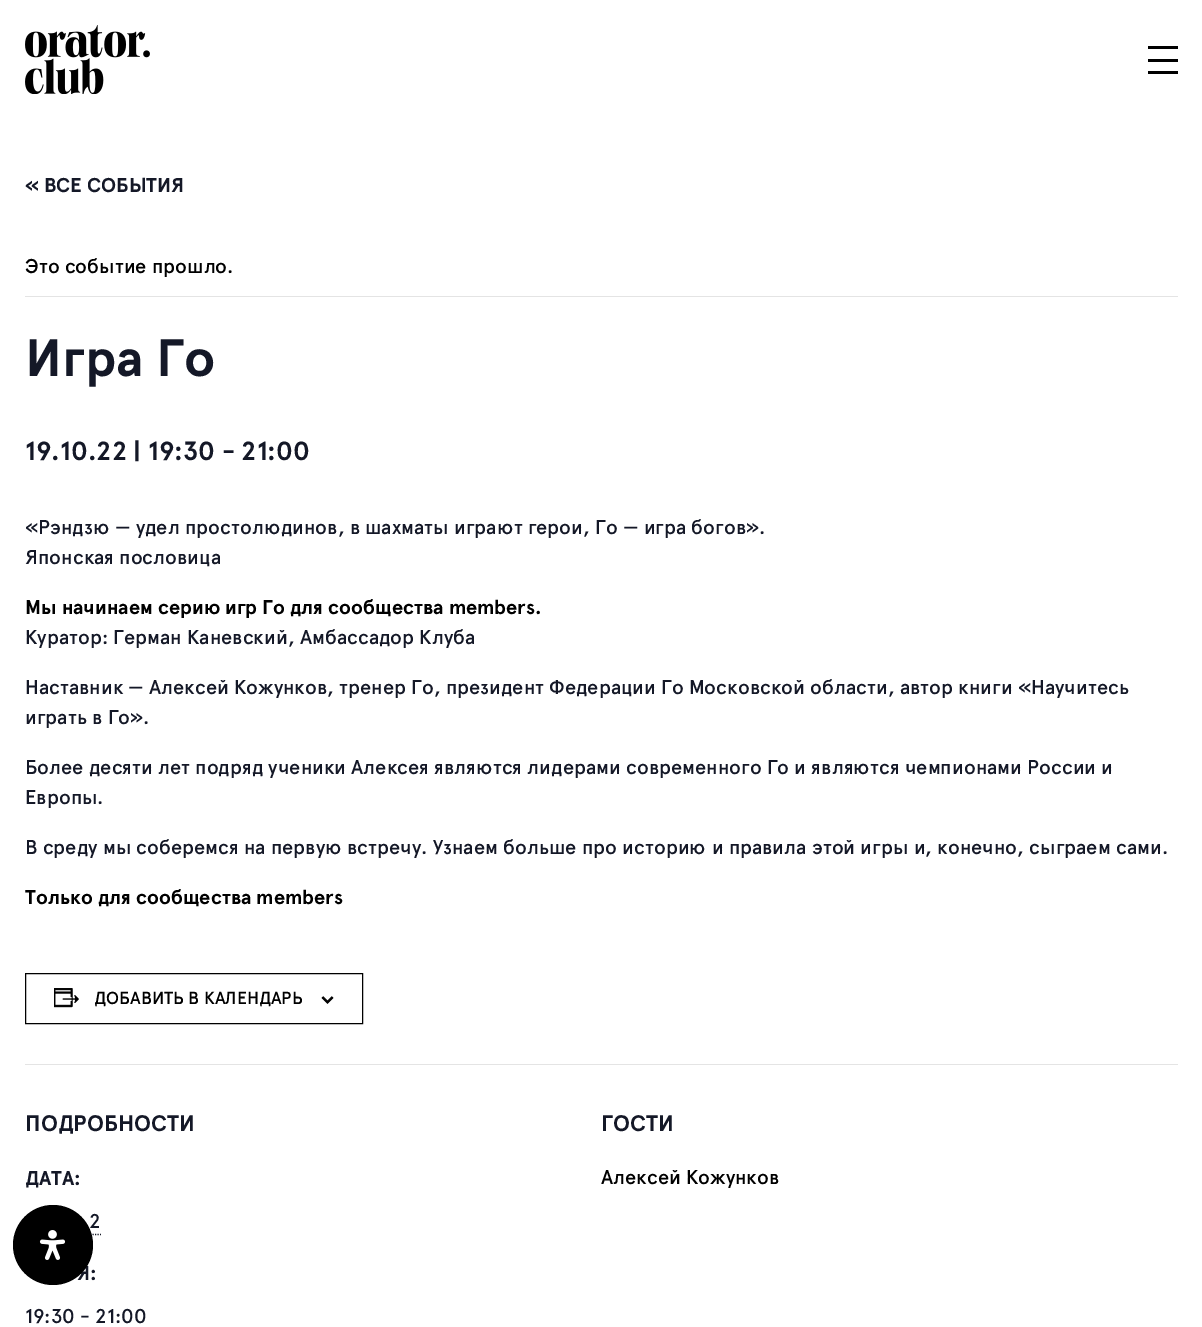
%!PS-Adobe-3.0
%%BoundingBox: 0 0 1202 1327
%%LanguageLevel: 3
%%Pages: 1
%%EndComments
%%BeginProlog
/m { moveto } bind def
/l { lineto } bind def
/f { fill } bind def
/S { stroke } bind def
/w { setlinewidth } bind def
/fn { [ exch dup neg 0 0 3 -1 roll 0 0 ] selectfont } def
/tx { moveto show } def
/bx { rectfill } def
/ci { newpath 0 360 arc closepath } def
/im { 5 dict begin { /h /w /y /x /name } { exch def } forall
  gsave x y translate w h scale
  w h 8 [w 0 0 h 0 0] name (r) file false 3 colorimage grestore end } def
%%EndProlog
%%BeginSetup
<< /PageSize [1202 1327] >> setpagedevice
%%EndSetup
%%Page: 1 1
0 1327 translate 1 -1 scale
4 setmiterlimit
1 setgray
0 0 1202 1327 bx
(image0.raw) 25 25 125 69 im
0 setgray
1148 46 30 3 bx
1148 59 30 3 bx
1148 71 30 3 bx
/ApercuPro-Bold 20 fn
0.078 0.094 0.153 setrgbcolor
(« ВСЕ СОБЫТИЯ) 25 192 tx
0.894 setgray
25 296 1153 1 bx
/ApercuPro-Medium 20 fn
0 setgray
(Это событие прошло.) 25 273 tx
/ApercuPro-Bold 52.5 fn
0.078 0.094 0.153 setrgbcolor
(Игра Го) 25 376 tx
/ApercuPro-Bold 26.25 fn
(19.10.22 | 19:30 - 21:00) 25 460 tx
/ApercuPro-Medium 20 fn
(«Рэндзю — удел простолюдинов, в шахматы играют герои, Го — игра богов».) 25 534 tx
(Японская пословица) 25 564 tx
/ApercuPro-Bold 20 fn
0 setgray
(Мы начинаем серию игр Го для сообщества members.) 25 614 tx
/ApercuPro-Medium 20 fn
0.078 0.094 0.153 setrgbcolor
(Куратор: Герман Каневский, Амбассадор Клуба) 25 644 tx
(Наставник — Алексей Кожунков, тренер Го, президент Федерации Го Московской области, автор книги «Научитесь) 25 694 tx
(играть в Го».) 25 724 tx
(Более десяти лет подряд ученики Алексея являются лидерами современного Го и являются чемпионами России и) 25 774 tx
(Европы.) 25 804 tx
(В среду мы соберемся на первую встречу. Узнаем больше про историю и правила этой игры и, конечно, сыграем сами.) 25 854 tx
/ApercuPro-Bold 20 fn
0 setgray
(Только для сообщества members) 25 904 tx
25.5 973.5 337 50 rectstroke
(image1.raw) 54 988 25 20 im
/ApercuPro-Medium 17.5 fn
(ДОБАВИТЬ В КАЛЕНДАРЬ) 94 1004 tx
(image2.raw) 321 996 13 8 im
0.894 setgray
25 1064 1153 1 bx
/ApercuPro-Bold 22.5 fn
0.078 0.094 0.153 setrgbcolor
(ПОДРОБНОСТИ) 25 1131 tx
/ApercuPro-Bold 20 fn
(ДАТА:) 25 1185 tx
/ApercuPro-Medium 20 fn
(2) 89 1228 tx
1.2 w
[1.25 1.25] 0 setdash
25 1234.5 m 101 1234.5 l S
/ApercuPro-Bold 20 fn
(Я:) 77 1280 tx
/ApercuPro-Medium 20 fn
(19:30 - 21:00) 25 1323 tx
/ApercuPro-Bold 22.5 fn
(ГОСТИ) 601 1131 tx
/ApercuPro-Medium 20 fn
0 setgray
(Алексей Кожунков) 601 1184 tx
53 1245 40 ci f
(image3.raw) 39 1230 27 30 im
showpage
%%EOF
